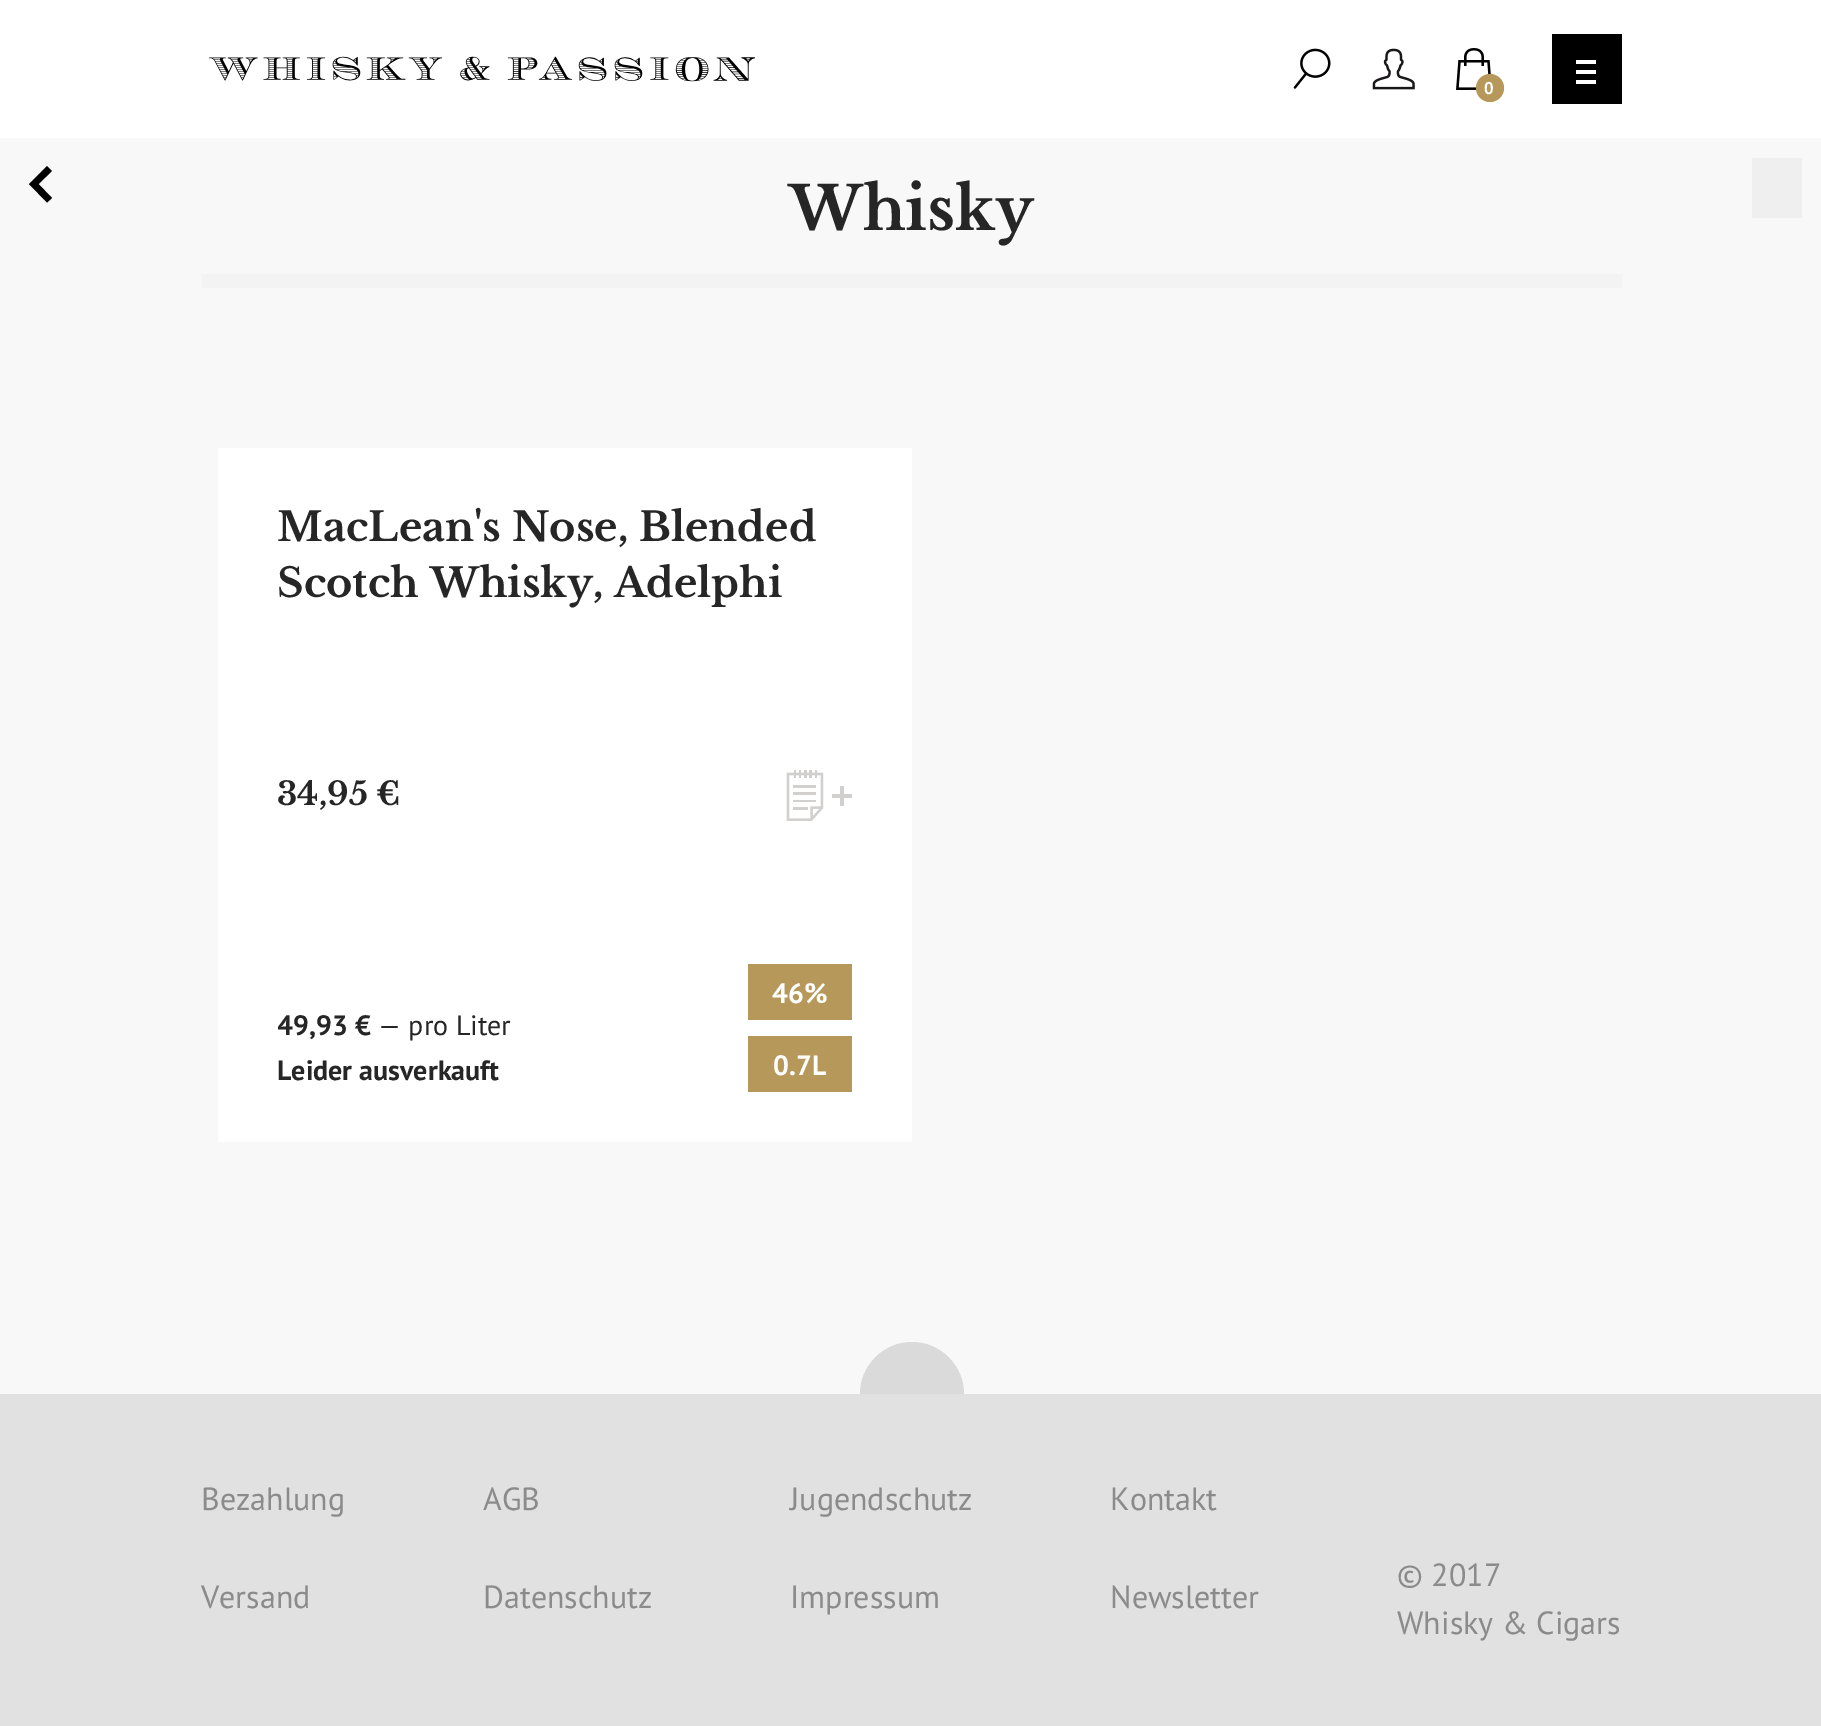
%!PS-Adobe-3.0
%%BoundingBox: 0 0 1821 1726
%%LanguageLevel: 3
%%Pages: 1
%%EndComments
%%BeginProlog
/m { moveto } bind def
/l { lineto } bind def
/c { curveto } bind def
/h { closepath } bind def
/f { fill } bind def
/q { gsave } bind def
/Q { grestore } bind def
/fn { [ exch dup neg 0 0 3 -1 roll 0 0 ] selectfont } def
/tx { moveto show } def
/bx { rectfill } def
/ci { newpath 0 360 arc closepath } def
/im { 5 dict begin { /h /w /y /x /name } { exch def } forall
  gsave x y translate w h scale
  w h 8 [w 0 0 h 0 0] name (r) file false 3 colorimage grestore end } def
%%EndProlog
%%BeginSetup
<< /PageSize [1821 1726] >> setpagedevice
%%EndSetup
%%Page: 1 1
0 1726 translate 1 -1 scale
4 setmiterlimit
0.973 setgray
0 0 1821 1726 bx
1 setgray
0 0 1821 138 bx
(image0.raw) 209 56 546 26 im
(image1.raw) 1293 48 38 41 im
(image2.raw) 1372 48 43 42 im
(image3.raw) 1456 48 35 42 im
0.714 0.596 0.353 setrgbcolor
1490 88 14 ci f
/PTSans-Bold 17 fn
1 setgray
(0) 1484 94 tx
0 setgray
1552 34 70 70 bx
1 setgray
1576 70 20 4 bx
1576 60 20 4 bx
1576 80 20 4 bx
0 setgray
38.5 184 m 52 198 l 47 202.5 l 29 184 l 47 166 l 52 171 l h f
/LibreBaskerville-Bold 60 fn
0.149 setgray
(Whisky) 789 230 tx
0.937 setgray
1752 158 50 60 bx
0.957 0.953 0.953 setrgbcolor
202 274 1420 14 bx
1 setgray
218 448 694 694 bx
/LibreBaskerville-Bold 40 fn
0.149 setgray
(MacLean's Nose, Blended) 277 541 tx
(Scotch Whisky, Adelphi) 277 597 tx
/LibreBaskerville-Bold 32 fn
(34,95 €) 277 805 tx
(image4.raw) 786 770 66 51 im
q
278 498 574 594 rectclip
/PTSans-Bold 28 fn
(49,93 €) 277 1035 tx
Q
/PTSans-Regular 28 fn
(— pro Liter) 378 1035 tx
0.714 0.596 0.353 setrgbcolor
748 964 104 56 bx
/PTSans-Bold 28 fn
1 setgray
(46%) 772 1003 tx
0.714 0.596 0.353 setrgbcolor
748 1036 104 56 bx
1 setgray
(0.7L) 773 1075 tx
0.149 setgray
(Leider ausverkauft) 277 1080 tx
0.886 0.882 0.882 setrgbcolor
0 1394 1821 332 bx
0.855 setgray
912 1342 m 940.5 1342 964 1365.5 964 1394 c 860 1394 l 860 1365.5 883.5 1342 912 1342 c h f
/PTSans-Regular 32 fn
0.545 setgray
(Bezahlung) 201 1510 tx
(Versand) 201 1608 tx
(AGB) 483 1510 tx
(Datenschutz) 483 1608 tx
(Jugendschutz) 790 1510 tx
(Impressum) 790 1608 tx
(Kontakt) 1110 1510 tx
(Newsletter) 1110 1608 tx
(© 2017) 1397 1586 tx
(Whisky & Cigars) 1397 1634 tx
showpage
%%EOF
